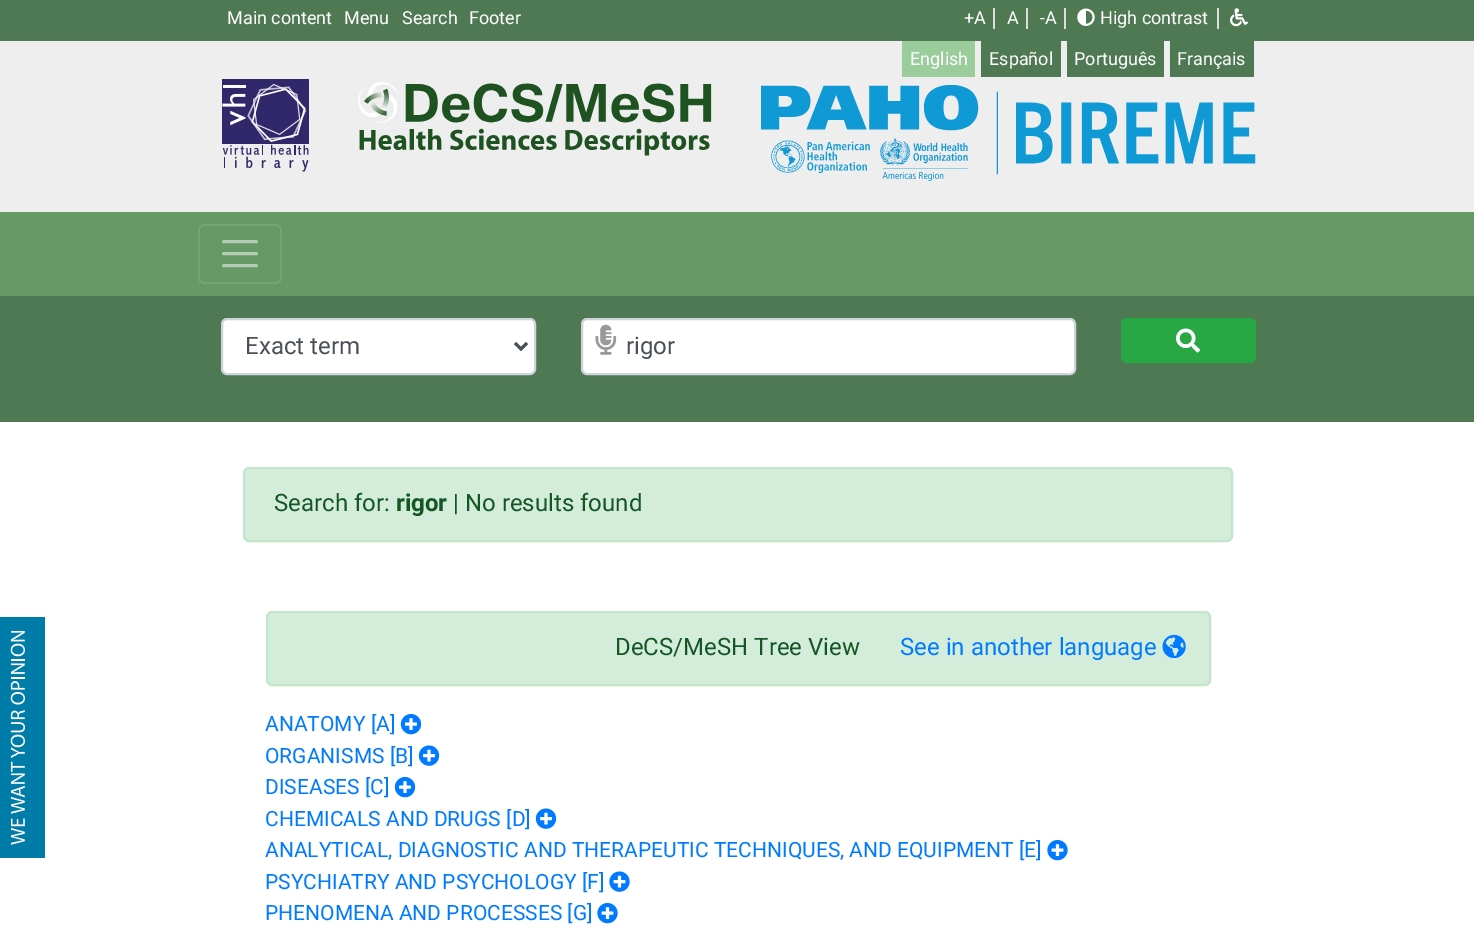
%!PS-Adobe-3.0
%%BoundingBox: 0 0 1474 933
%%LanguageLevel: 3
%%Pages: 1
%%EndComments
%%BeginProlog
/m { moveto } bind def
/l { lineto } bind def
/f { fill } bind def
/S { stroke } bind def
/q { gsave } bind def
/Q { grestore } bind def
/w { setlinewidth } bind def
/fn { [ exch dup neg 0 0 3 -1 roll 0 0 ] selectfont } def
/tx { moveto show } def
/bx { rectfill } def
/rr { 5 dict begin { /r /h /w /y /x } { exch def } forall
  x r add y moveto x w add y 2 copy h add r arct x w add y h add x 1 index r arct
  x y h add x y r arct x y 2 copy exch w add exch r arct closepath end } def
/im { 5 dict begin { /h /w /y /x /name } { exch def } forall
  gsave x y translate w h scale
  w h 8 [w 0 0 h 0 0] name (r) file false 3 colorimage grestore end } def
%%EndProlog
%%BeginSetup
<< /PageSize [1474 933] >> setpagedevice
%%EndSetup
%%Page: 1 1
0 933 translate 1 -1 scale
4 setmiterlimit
1 setgray
0 0 1474 933 bx
0.306 0.475 0.322 setrgbcolor
0 0 1474 41 bx
/Roboto-Regular 18 fn
1 setgray
(Main content) 227 24 tx
(Menu) 344 24 tx
(Search) 402 24 tx
(Footer) 469 24 tx
(+A) 964 24 tx
0.867 setgray
993 8 2 21 bx
1 setgray
(A) 1007 24 tx
0.867 setgray
1026 8 2 21 bx
1 setgray
(-A) 1040 24 tx
0.867 setgray
1064 8 2 21 bx
1217 8 2 21 bx
(image0.raw) 1077 8 18 18 im
1 setgray
(High contrast) 1100 24 tx
(image1.raw) 1230 8 18 19 im
0.933 setgray
0 41 1474 171 bx
0.608 0.8 0.608 setrgbcolor
902 41 73 36 bx
1 setgray
(English) 910 65 tx
0.306 0.475 0.322 setrgbcolor
981 41 80 36 bx
1 setgray
(Español) 989 65 tx
0.306 0.475 0.322 setrgbcolor
1067 41 97 36 bx
1 setgray
(Português) 1074 65 tx
0.306 0.475 0.322 setrgbcolor
1170 41 84 36 bx
1 setgray
(Français) 1177 65 tx
(image2.raw) 222 79 87 93 im
(image3.raw) 358 82 354 74 im
(image4.raw) 761 85 495 96 im
0.4 0.6 0.4 setrgbcolor
0 212 1474 84 bx
0.459 0.639 0.459 setrgbcolor
2 w
199 225 82 58 5 rr S
0.702 0.8 0.702 setrgbcolor
3 w
1 setlinecap
223.5 241.5 m 256.5 241.5 l 223.5 253.5 m 256.5 253.5 l 223.5 265.5 m 256.5 265.5 l S
0.306 0.475 0.322 setrgbcolor
0 296 1474 126 bx
1 setgray
222 319 313 55 5 rr q f Q
0.808 0.831 0.855 setrgbcolor
2 w
0 setlinecap
S
0.286 0.314 0.341 setrgbcolor
3 w
515 343 m 521 349 l 527 343 l S
/Roboto-Regular 24 fn
(Exact term) 245 354 tx
1 setgray
582 319 493 55 5 rr q f Q
0.808 0.831 0.855 setrgbcolor
2 w
S
(image5.raw) 595 324 22 31 im
0.286 0.314 0.341 setrgbcolor
(rigor) 626 354 tx
0.157 0.655 0.271 setrgbcolor
1122 319 133 43 5 rr q f Q
S
(image6.raw) 1176 328 24 25 im
0.831 0.929 0.855 setrgbcolor
244 468 988 73 5 rr q f Q
0.765 0.902 0.796 setrgbcolor
S
0.082 0.341 0.141 setrgbcolor
(Search for:) 274 511 tx
/Roboto-Bold 24 fn
(rigor) 396 511 tx
/Roboto-Regular 24 fn
(| No results found) 453 511 tx
(image7.raw) 0 617 45 241 im
0.831 0.929 0.855 setrgbcolor
267 612 943 73 5 rr q f Q
0.765 0.902 0.796 setrgbcolor
S
0.082 0.341 0.141 setrgbcolor
(DeCS/MeSH Tree View) 615 655 tx
0 0.482 1 setrgbcolor
(See in another language) 900 655 tx
(image8.raw) 1162 634 24 25 im
/Roboto-Regular 21 fn
(ANATOMY [A]) 265 731 tx
(image9.raw) 400 714 22 21 im
(ORGANISMS [B]) 265 763 tx
(image10.raw) 418 745 22 21 im
(DISEASES [C]) 265 794 tx
(image9.raw) 394 777 22 21 im
(CHEMICALS AND DRUGS [D]) 265 826 tx
(image10.raw) 535 808 22 21 im
(ANALYTICAL, DIAGNOSTIC AND THERAPEUTIC TECHNIQUES, AND EQUIPMENT [E]) 265 857 tx
(image11.raw) 1047 840 21 21 im
(PSYCHIATRY AND PSYCHOLOGY [F]) 265 889 tx
(image12.raw) 609 871 21 21 im
(PHENOMENA AND PROCESSES [G]) 265 920 tx
(image11.raw) 597 903 21 21 im
showpage
%%EOF
